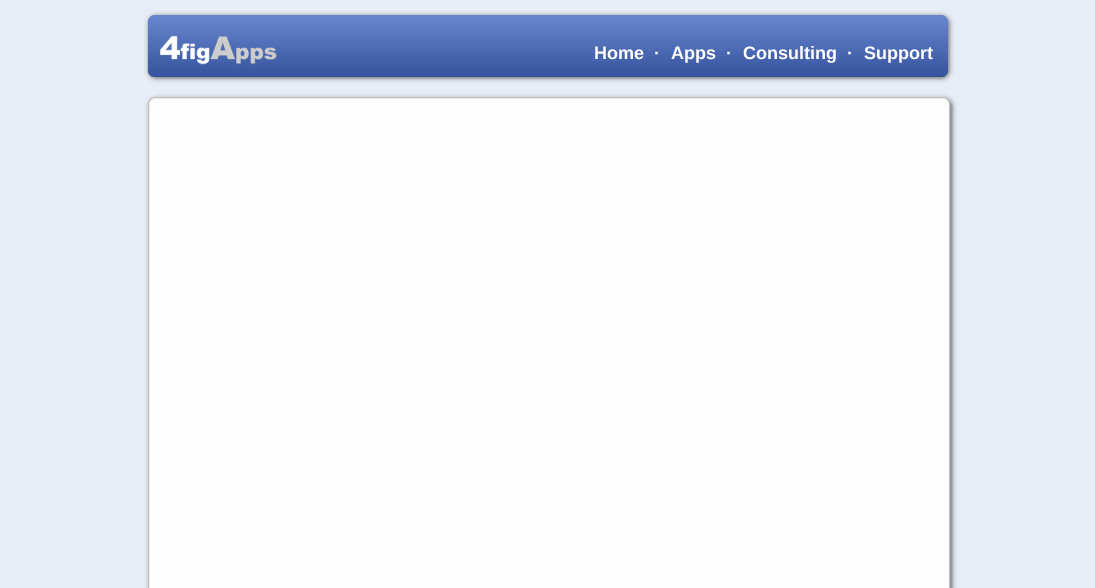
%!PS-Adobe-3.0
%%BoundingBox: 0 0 1095 588
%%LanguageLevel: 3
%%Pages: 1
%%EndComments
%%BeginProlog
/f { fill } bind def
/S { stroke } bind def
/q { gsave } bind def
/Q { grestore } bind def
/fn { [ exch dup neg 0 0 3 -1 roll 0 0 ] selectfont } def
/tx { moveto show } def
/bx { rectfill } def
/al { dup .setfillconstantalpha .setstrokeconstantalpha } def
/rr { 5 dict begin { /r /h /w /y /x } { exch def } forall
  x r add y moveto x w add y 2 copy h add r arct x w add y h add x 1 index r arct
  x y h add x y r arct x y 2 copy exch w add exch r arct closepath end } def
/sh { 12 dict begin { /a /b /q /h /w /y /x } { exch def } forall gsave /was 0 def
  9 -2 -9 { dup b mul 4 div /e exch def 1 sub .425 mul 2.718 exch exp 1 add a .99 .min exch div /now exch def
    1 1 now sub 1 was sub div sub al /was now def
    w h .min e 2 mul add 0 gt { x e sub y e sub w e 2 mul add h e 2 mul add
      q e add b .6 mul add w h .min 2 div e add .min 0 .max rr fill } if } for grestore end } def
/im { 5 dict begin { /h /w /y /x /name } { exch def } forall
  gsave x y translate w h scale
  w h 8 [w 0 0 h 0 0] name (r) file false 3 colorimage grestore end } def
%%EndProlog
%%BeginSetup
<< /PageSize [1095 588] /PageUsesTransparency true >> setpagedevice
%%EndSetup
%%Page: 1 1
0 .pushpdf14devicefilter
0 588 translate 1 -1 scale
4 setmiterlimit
0.906 0.929 0.969 setrgbcolor
0 0 1095 588 bx
0.392 setgray
149 16 800 62 7 2.5 1 sh
0.263 0.412 0.769 setrgbcolor
148 15 800 62 7 rr f
0.2 al
q 148 15 800 62 7 rr clip newpath
<< /ShadingType 2 /ColorSpace /DeviceRGB /Coords [148 15 148 77] /Extend [true true] /Function << /FunctionType 2 /Domain [0 1] /C0 [1 1 1] /C1 [0 0 0] /N 1 >> >> shfill Q
1 al
(image0.raw) 160 35 117 30 im
/LiberationSans-Bold 18 fn
1 setgray
(Home) 594 59 tx
(·) 654 59 tx
(Apps) 671 59 tx
(·) 726 59 tx
(Consulting) 743 59 tx
(·) 847 59 tx
(Support) 864 59 tx
0.392 setgray
150 99 802 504 7 2.5 1 sh
0.992 setgray
148.5 97.5 801 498 6.5 rr q f Q
0.753 setgray
S
.poppdf14devicefilter showpage
%%EOF
